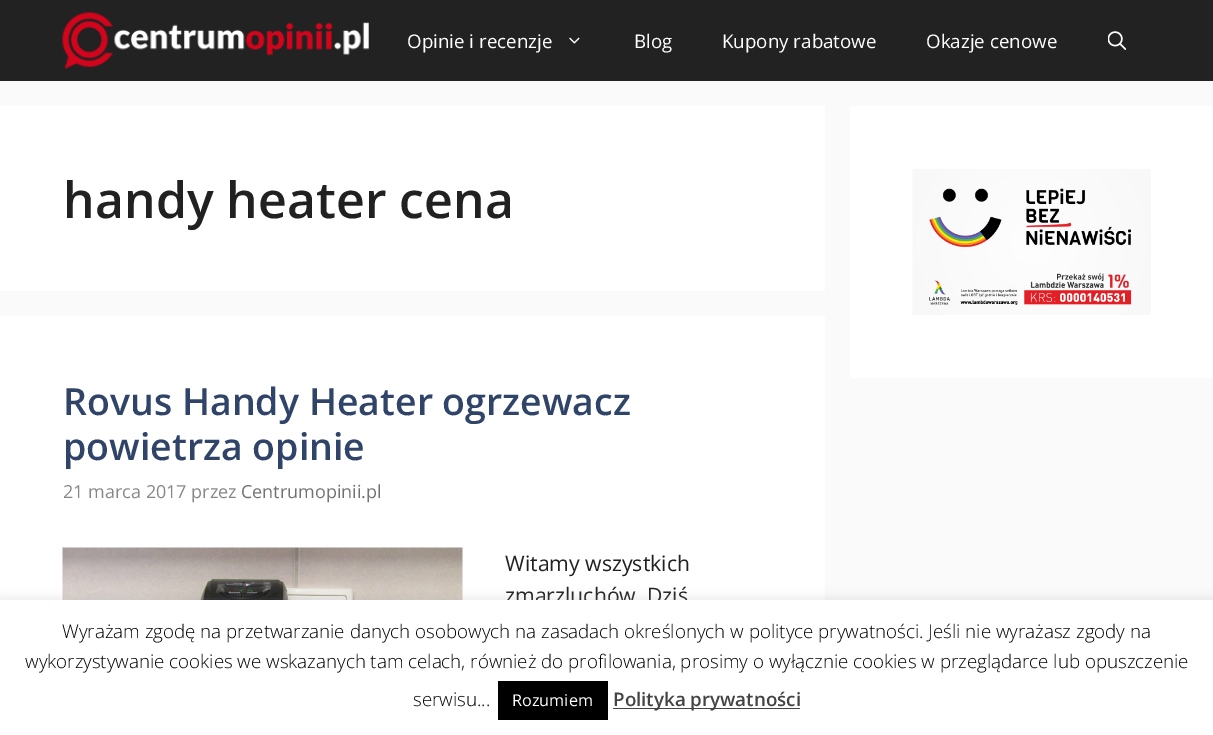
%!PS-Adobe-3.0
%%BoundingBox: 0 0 1213 735
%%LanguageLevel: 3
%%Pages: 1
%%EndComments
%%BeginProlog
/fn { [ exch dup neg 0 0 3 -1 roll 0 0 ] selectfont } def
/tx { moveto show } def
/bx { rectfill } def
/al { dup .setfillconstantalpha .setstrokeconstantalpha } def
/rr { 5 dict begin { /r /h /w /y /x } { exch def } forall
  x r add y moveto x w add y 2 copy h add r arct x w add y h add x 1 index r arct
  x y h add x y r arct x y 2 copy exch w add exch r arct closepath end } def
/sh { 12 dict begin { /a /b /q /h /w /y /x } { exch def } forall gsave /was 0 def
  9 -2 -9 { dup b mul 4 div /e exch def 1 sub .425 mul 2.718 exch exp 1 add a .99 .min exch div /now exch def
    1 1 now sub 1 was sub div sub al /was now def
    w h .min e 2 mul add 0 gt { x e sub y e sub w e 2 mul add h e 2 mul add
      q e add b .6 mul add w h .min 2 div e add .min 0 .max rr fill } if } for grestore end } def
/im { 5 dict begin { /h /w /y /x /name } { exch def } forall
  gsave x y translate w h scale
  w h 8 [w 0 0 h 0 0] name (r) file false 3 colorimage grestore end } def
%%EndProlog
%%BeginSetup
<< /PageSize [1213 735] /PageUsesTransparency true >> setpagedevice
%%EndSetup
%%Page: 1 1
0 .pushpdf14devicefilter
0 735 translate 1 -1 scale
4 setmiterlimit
0.98 setgray
0 0 1213 735 bx
0.133 setgray
0 0 1213 81 bx
(image0.raw) 62 12 307 57 im
/OpenSans-Regular 18.75 fn
1 setgray
(Opinie i recenzje) 407 48 tx
(image1.raw) 569 37 11 7 im
(Blog) 634 48 tx
(Kupony rabatowe) 722 48 tx
(Okazje cenowe) 926 48 tx
(image2.raw) 1108 31 18 19 im
0 106 825 185 bx
/OpenSans-SemiBold 50 fn
0.129 setgray
(handy heater cena) 63 218 tx
1 setgray
0 316 825 284 bx
/OpenSans-SemiBold 37.5 fn
0.184 0.267 0.408 setrgbcolor
(Rovus Handy Heater ogrzewacz) 63 415 tx
(powietrza opinie) 63 460 tx
/OpenSans-Regular 18 fn
0.529 setgray
(21 marca 2017 przez) 63 498 tx
0.447 setgray
(Centrumopinii.pl) 241 498 tx
(image3.raw) 62 547 401 53 im
/OpenSans-Regular 21.25 fn
0.129 setgray
(Witamy wszystkich) 505 571 tx
(zmarzluchów. Dziś) 505 603 tx
1 setgray
850 106 363 272 bx
(image4.raw) 912 169 239 146 im
0.675 0.671 0.671 setrgbcolor
0 599 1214 135 0 6 0.3 sh
1 setgray
0 600 1213 135 bx
/OpenSans-Light 18.75 fn
0 setgray
(Wyrażam zgodę na przetwarzanie danych osobowych na zasadach określonych w polityce prywatności. Jeśli nie wyrażasz zgody na) 62 638 tx
(wykorzystywanie cookies we wskazanych tam celach, również do profilowania, prosimy o wyłącznie cookies w przeglądarce lub opuszczenie) 25 668 tx
(serwisu...) 413 706 tx
498 681 110 39 bx
/OpenSans-Regular 16.25 fn
1 setgray
(Rozumiem) 512 706 tx
0.267 setgray
613 708 187 1 bx
/OpenSans-SemiBold 18.75 fn
(Polityka prywatności) 613 706 tx
.poppdf14devicefilter showpage
%%EOF
